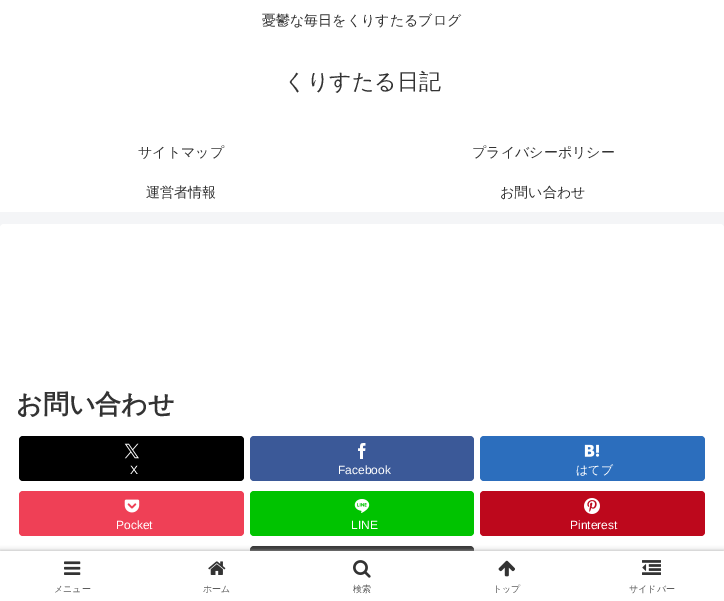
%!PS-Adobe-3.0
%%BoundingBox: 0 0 724 601
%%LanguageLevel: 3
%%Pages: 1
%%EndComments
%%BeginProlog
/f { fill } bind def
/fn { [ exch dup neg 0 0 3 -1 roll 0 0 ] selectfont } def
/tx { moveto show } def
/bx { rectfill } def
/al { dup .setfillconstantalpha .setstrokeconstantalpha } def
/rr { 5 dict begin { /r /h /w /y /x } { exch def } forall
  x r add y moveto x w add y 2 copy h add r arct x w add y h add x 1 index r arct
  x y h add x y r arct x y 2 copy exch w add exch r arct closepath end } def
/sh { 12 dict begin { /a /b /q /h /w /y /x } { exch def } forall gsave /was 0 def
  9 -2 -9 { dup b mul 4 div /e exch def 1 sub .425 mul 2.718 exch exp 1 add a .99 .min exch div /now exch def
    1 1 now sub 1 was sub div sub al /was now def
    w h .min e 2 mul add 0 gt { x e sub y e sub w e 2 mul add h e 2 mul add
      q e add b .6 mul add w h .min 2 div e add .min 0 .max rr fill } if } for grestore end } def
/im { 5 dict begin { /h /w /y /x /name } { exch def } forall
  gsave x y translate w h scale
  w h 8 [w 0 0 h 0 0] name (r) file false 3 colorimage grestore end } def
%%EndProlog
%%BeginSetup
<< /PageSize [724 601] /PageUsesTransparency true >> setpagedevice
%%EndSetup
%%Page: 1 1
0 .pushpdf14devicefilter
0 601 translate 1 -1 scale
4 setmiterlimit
0.957 0.961 0.969 setrgbcolor
0 0 724 601 bx
1 setgray
0 0 724 212 bx
/WenQuanYiZenHei-Medium 14 fn
0.2 setgray
(憂鬱な毎日をくりすたるブログ) 262 25 tx
/WenQuanYiZenHei-Medium 22 fn
(くりすたる日記) 284 89 tx
/WenQuanYiZenHei-Medium 14 fn
(サイトマップ) 138 157 tx
(プライバシーポリシー) 472 157 tx
(運営者情報) 146 197 tx
(お問い合わせ) 500 197 tx
1 setgray
0 224 724 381 4 rr f
/WenQuanYiZenHei-Bold 26 fn
0.2 setgray
(お問い合わせ) 16 413 tx
0 setgray
19 436 225 45 4 rr f
(image0.raw) 124 443 15 16 im
/LiberationSans-Regular 12 fn
1 setgray
(X) 130 474 tx
0.231 0.349 0.596 setrgbcolor
250 436 224 45 4 rr f
(image1.raw) 358 443 8 16 im
1 setgray
(Facebook) 338 474 tx
0.173 0.431 0.741 setrgbcolor
480 436 225 45 4 rr f
(image2.raw) 584 444 16 13 im
/WenQuanYiZenHei-Medium 12 fn
1 setgray
(はてブ) 576 474 tx
0.937 0.251 0.337 setrgbcolor
19 491 225 45 4 rr f
(image3.raw) 124 499 16 14 im
/LiberationSans-Regular 12 fn
1 setgray
(Pocket) 116 529 tx
0 0.765 0 setrgbcolor
250 491 224 45 4 rr f
(image4.raw) 354 499 16 14 im
1 setgray
(LINE) 351 529 tx
0.741 0.031 0.11 setrgbcolor
480 491 225 45 4 rr f
(image5.raw) 584 498 16 16 im
1 setgray
(Pinterest) 570 529 tx
0.2 setgray
250 546 224 45 4 rr f
0.663 setgray
0 551 724 50 0 2.5 1 sh
1 setgray
0 551 724 50 bx
(image6.raw) 64 561 17 14 im
/WenQuanYiZenHei-Medium 9 fn
0.361 setgray
(メニュー) 54 592 tx
(image7.raw) 208 561 18 14 im
(ホーム) 203 592 tx
(image8.raw) 353 560 18 18 im
(検索) 353 592 tx
(image9.raw) 498 560 17 17 im
(トップ) 493 592 tx
(image10.raw) 642 560 19 15 im
(サイドバー) 629 592 tx
.poppdf14devicefilter showpage
%%EOF
